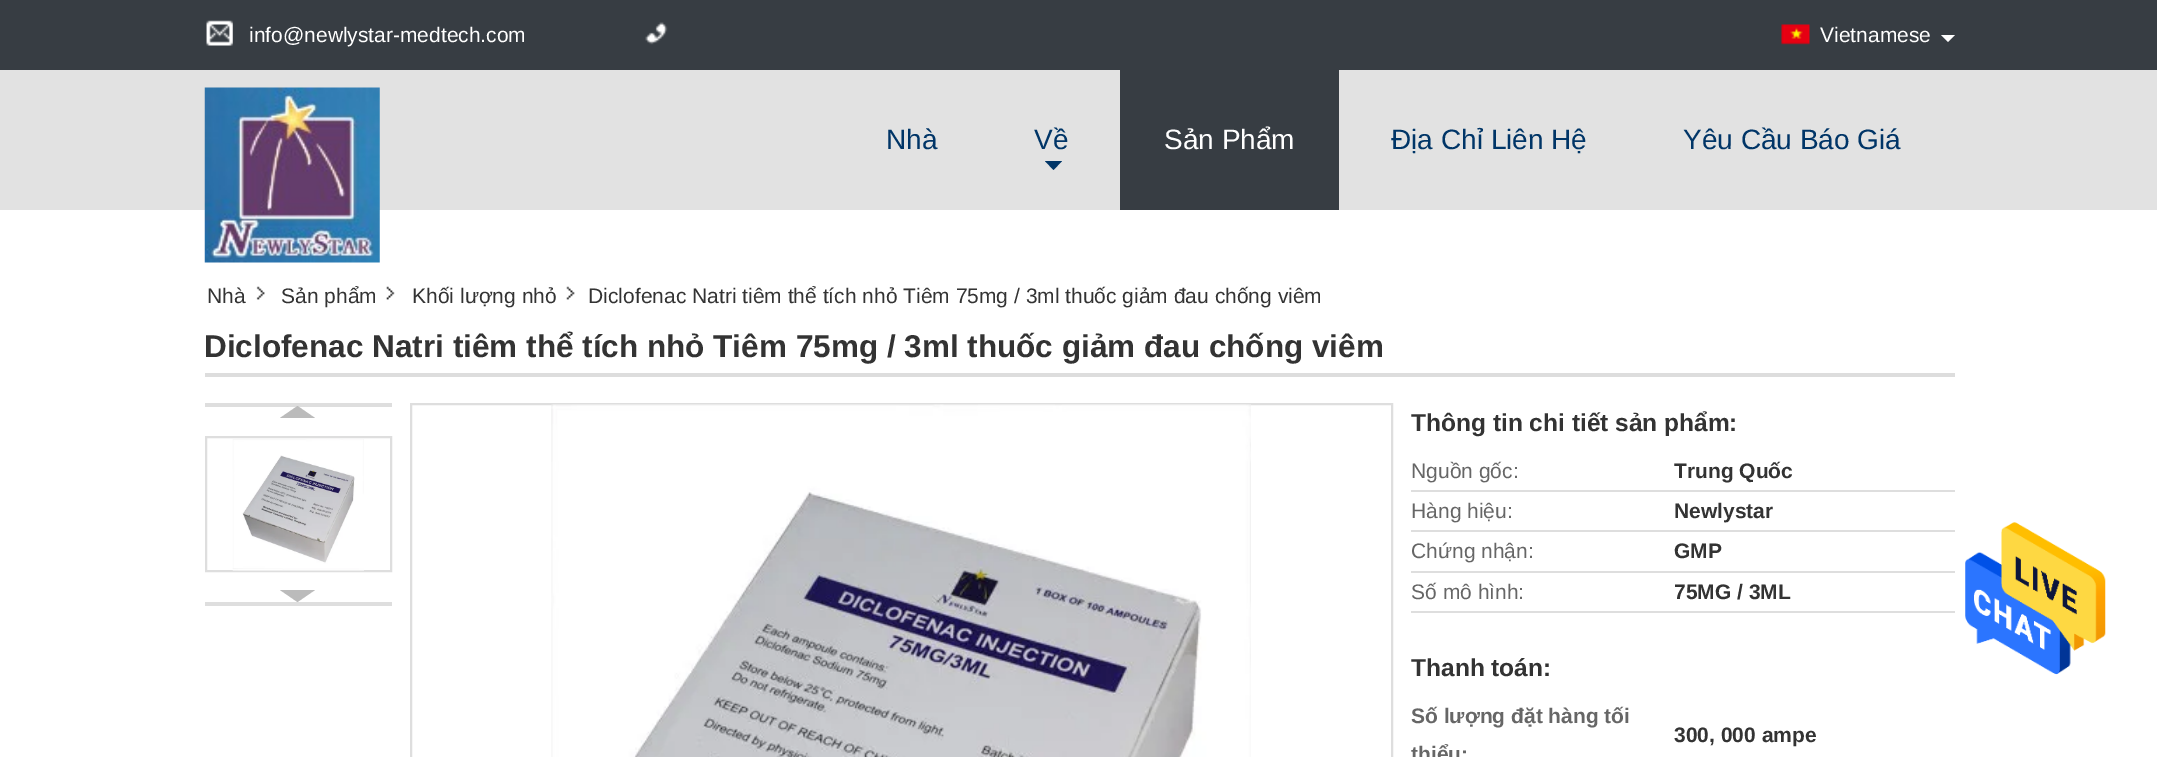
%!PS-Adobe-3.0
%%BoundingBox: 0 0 2157 757
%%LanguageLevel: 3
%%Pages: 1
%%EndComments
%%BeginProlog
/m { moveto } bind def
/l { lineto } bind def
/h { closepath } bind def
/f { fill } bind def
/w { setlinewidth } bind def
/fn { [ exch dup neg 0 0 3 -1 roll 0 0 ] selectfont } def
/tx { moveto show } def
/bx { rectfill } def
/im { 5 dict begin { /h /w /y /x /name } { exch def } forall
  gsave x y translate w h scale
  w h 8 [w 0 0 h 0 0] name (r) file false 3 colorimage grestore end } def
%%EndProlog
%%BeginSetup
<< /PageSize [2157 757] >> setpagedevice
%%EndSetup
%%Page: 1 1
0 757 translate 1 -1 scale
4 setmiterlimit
1 setgray
0 0 2157 757 bx
0.216 0.239 0.263 setrgbcolor
0 0 2157 70 bx
(image0.raw) 206 20 27 26 im
/LiberationSans-Regular 21 fn
1 setgray
(info@newlystar-medtech.com) 249 42 tx
(image1.raw) 645 22 23 23 im
(image2.raw) 1781 24 29 21 im
(Vietnamese) 1820 42 tx
1941 35 m 1955 35 l 1948 42 l h f
0.886 setgray
0 70 2157 140 bx
(image3.raw) 204 87 176 176 im
/LiberationSans-Regular 28 fn
0 0.208 0.404 setrgbcolor
(Nhà) 886 149 tx
(Về) 1034 149 tx
1045 161 m 1062 161 l 1053.5 170 l h f
0.216 0.239 0.263 setrgbcolor
1120 70 219 140 bx
1 setgray
(Sản Phẩm) 1164 149 tx
0 0.208 0.404 setrgbcolor
(Địa Chỉ Liên Hệ) 1391 149 tx
(Yêu Cầu Báo Giá) 1683 149 tx
(image4.raw) 256 286 9 14 im
/LiberationSans-Regular 21 fn
0.2 setgray
(Nhà) 207 303 tx
(image5.raw) 386 286 9 14 im
(Sản phẩm) 281 303 tx
(image6.raw) 566 286 9 14 im
(Khối lượng nhỏ) 412 303 tx
(Diclofenac Natri tiêm thể tích nhỏ Tiêm 75mg / 3ml thuốc giảm đau chống viêm) 588 303 tx
0.867 setgray
205 373 1750 4 bx
/LiberationSans-Bold 31.5 fn
0.2 setgray
(Diclofenac Natri tiêm thể tích nhỏ Tiêm 75mg / 3ml thuốc giảm đau chống viêm) 204 357 tx
0.871 setgray
205 403 187 4 bx
0.733 setgray
315 418 m 280 418 l 297.5 406 l h f
0.871 setgray
2 w
206 437 185 134 rectstroke
(image7.raw) 232 439 132 132 im
205 602 187 4 bx
0.733 setgray
280 590 m 315 590 l 297.5 602 l h f
0.871 setgray
411 404 981 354 rectstroke
(image8.raw) 551 404 700 353 im
/LiberationSans-Bold 24.5 fn
0.2 setgray
(Thông tin chi tiết sản phẩm:) 1411 431 tx
/LiberationSans-Regular 21 fn
0.4 setgray
(Nguồn gốc:) 1411 478 tx
0.871 setgray
1411 490 544 2 bx
/LiberationSans-Bold 21 fn
0.2 setgray
(Trung Quốc) 1674 478 tx
/LiberationSans-Regular 21 fn
0.4 setgray
(Hàng hiệu:) 1411 518 tx
0.871 setgray
1411 530 544 2 bx
/LiberationSans-Bold 21 fn
0.2 setgray
(Newlystar) 1674 518 tx
/LiberationSans-Regular 21 fn
0.4 setgray
(Chứng nhận:) 1411 558 tx
0.871 setgray
1411 571 544 2 bx
/LiberationSans-Bold 21 fn
0.2 setgray
(GMP) 1674 558 tx
/LiberationSans-Regular 21 fn
0.4 setgray
(Số mô hình:) 1411 599 tx
0.871 setgray
1411 611 544 2 bx
/LiberationSans-Bold 21 fn
0.2 setgray
(75MG / 3ML) 1674 599 tx
/LiberationSans-Bold 24.5 fn
(Thanh toán:) 1411 676 tx
/LiberationSans-Bold 21 fn
0.4 setgray
(Số lượng đặt hàng tối) 1411 723 tx
(thiểu:) 1411 761 tx
0.2 setgray
(300, 000 ampe) 1674 742 tx
(image9.raw) 1965 522 141 153 im
showpage
%%EOF
